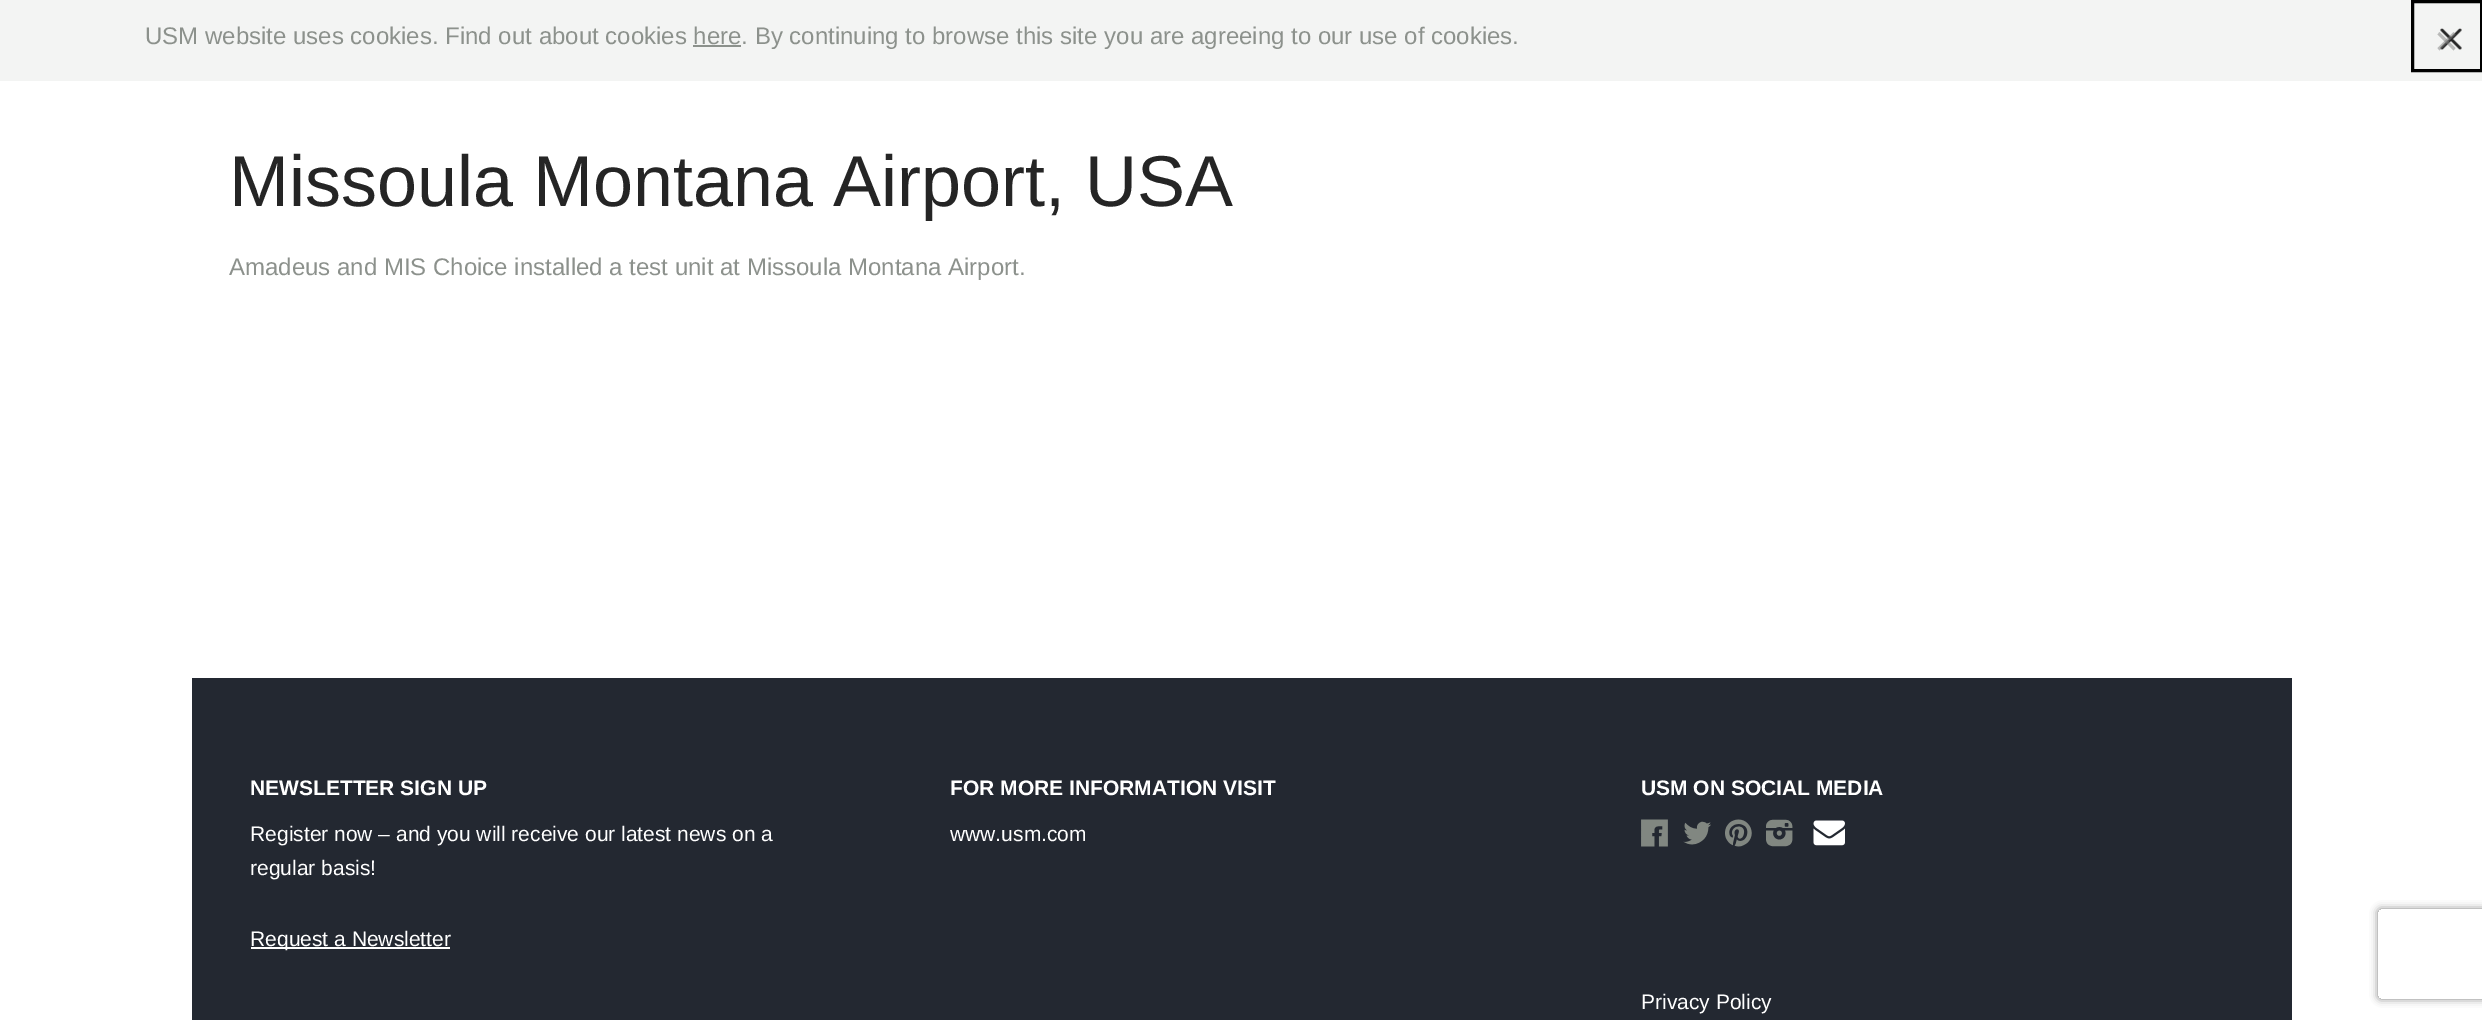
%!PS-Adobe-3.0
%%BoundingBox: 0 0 2482 1020
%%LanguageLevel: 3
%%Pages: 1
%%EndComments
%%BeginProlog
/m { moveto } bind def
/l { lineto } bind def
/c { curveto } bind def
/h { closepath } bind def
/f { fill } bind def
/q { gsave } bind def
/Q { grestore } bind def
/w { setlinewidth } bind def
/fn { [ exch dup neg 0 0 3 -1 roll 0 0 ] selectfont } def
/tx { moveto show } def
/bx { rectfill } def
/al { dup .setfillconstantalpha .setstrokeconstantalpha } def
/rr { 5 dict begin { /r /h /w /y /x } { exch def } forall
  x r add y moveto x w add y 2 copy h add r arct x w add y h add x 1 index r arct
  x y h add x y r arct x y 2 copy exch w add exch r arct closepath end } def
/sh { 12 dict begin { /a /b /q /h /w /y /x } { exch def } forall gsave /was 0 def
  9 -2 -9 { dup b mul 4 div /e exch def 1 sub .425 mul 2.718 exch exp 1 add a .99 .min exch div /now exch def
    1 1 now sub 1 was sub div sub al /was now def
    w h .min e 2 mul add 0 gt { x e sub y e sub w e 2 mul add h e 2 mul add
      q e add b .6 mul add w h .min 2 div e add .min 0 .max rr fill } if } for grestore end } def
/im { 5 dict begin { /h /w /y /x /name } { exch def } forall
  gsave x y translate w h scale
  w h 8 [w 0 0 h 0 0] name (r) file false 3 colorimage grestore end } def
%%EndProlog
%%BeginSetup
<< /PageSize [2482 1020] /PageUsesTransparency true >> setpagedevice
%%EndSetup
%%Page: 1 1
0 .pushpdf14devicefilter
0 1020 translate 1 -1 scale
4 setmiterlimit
1 setgray
0 0 2482 1020 bx
0.953 0.957 0.953 setrgbcolor
0 0 2482 81 bx
/LiberationSans-Regular 24 fn
0.549 0.569 0.549 setrgbcolor
(USM website uses cookies. Find out about cookies here. By continuing to browse this site you are agreeing to our use of cookies.) 145 44 tx
693 45 48 2 bx
(image0.raw) 2440 28 22 22 im
0 setgray
3 w
2412.5 1.5 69 69 rectstroke
0.5 al
0.502 setgray
2453.5 32 m 2455.5 34.5 l 2439.5 50.5 l 2437.5 48 l h f
2437.5 34.5 m 2439.5 32 l 2455.5 48 l 2453.5 50.5 l h f
/LiberationSans-Regular 72 fn
1 al
0.145 setgray
(Missoula Montana Airport, USA) 229 206 tx
/LiberationSans-Regular 24 fn
0.549 0.569 0.549 setrgbcolor
(Amadeus and MIS Choice installed a test unit at Missoula Montana Airport.) 229 275 tx
0.137 0.157 0.192 setrgbcolor
192 678 2100 342 bx
/LiberationSans-Bold 21 fn
1 setgray
(NEWSLETTER SIGN UP) 250 795 tx
/LiberationSans-Regular 21 fn
(Register now – and you will receive our latest news on a) 250 841 tx
(regular basis!) 250 875 tx
251 947 199 2 bx
(Request a Newsletter) 250 946 tx
/LiberationSans-Bold 21 fn
(FOR MORE INFORMATION VISIT) 950 795 tx
/LiberationSans-Regular 21 fn
(www.usm.com) 950 841 tx
/LiberationSans-Bold 21 fn
(USM ON SOCIAL MEDIA) 1641 795 tx
(image1.raw) 1641 819 27 28 im
(image2.raw) 1683 821 28 24 im
(image3.raw) 1725 819 27 28 im
(image4.raw) 1766 819 27 28 im
(image5.raw) 1813 820 32 26 im
/LiberationSans-Regular 21 fn
(Privacy Policy) 1641 1009 tx
q
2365 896 m 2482 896 l 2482 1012 l 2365 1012 l h 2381 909 m 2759 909 l 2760.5 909 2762 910.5 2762 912 c 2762 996 l 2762 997.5 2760.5 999 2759 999 c 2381 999 l 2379.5 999 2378 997.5 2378 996 c 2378 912 l 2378 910.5 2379.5 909 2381 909 c h eoclip newpath
0.502 setgray
2378 909 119 90 3 4 1 sh
Q
.poppdf14devicefilter showpage
%%EOF
